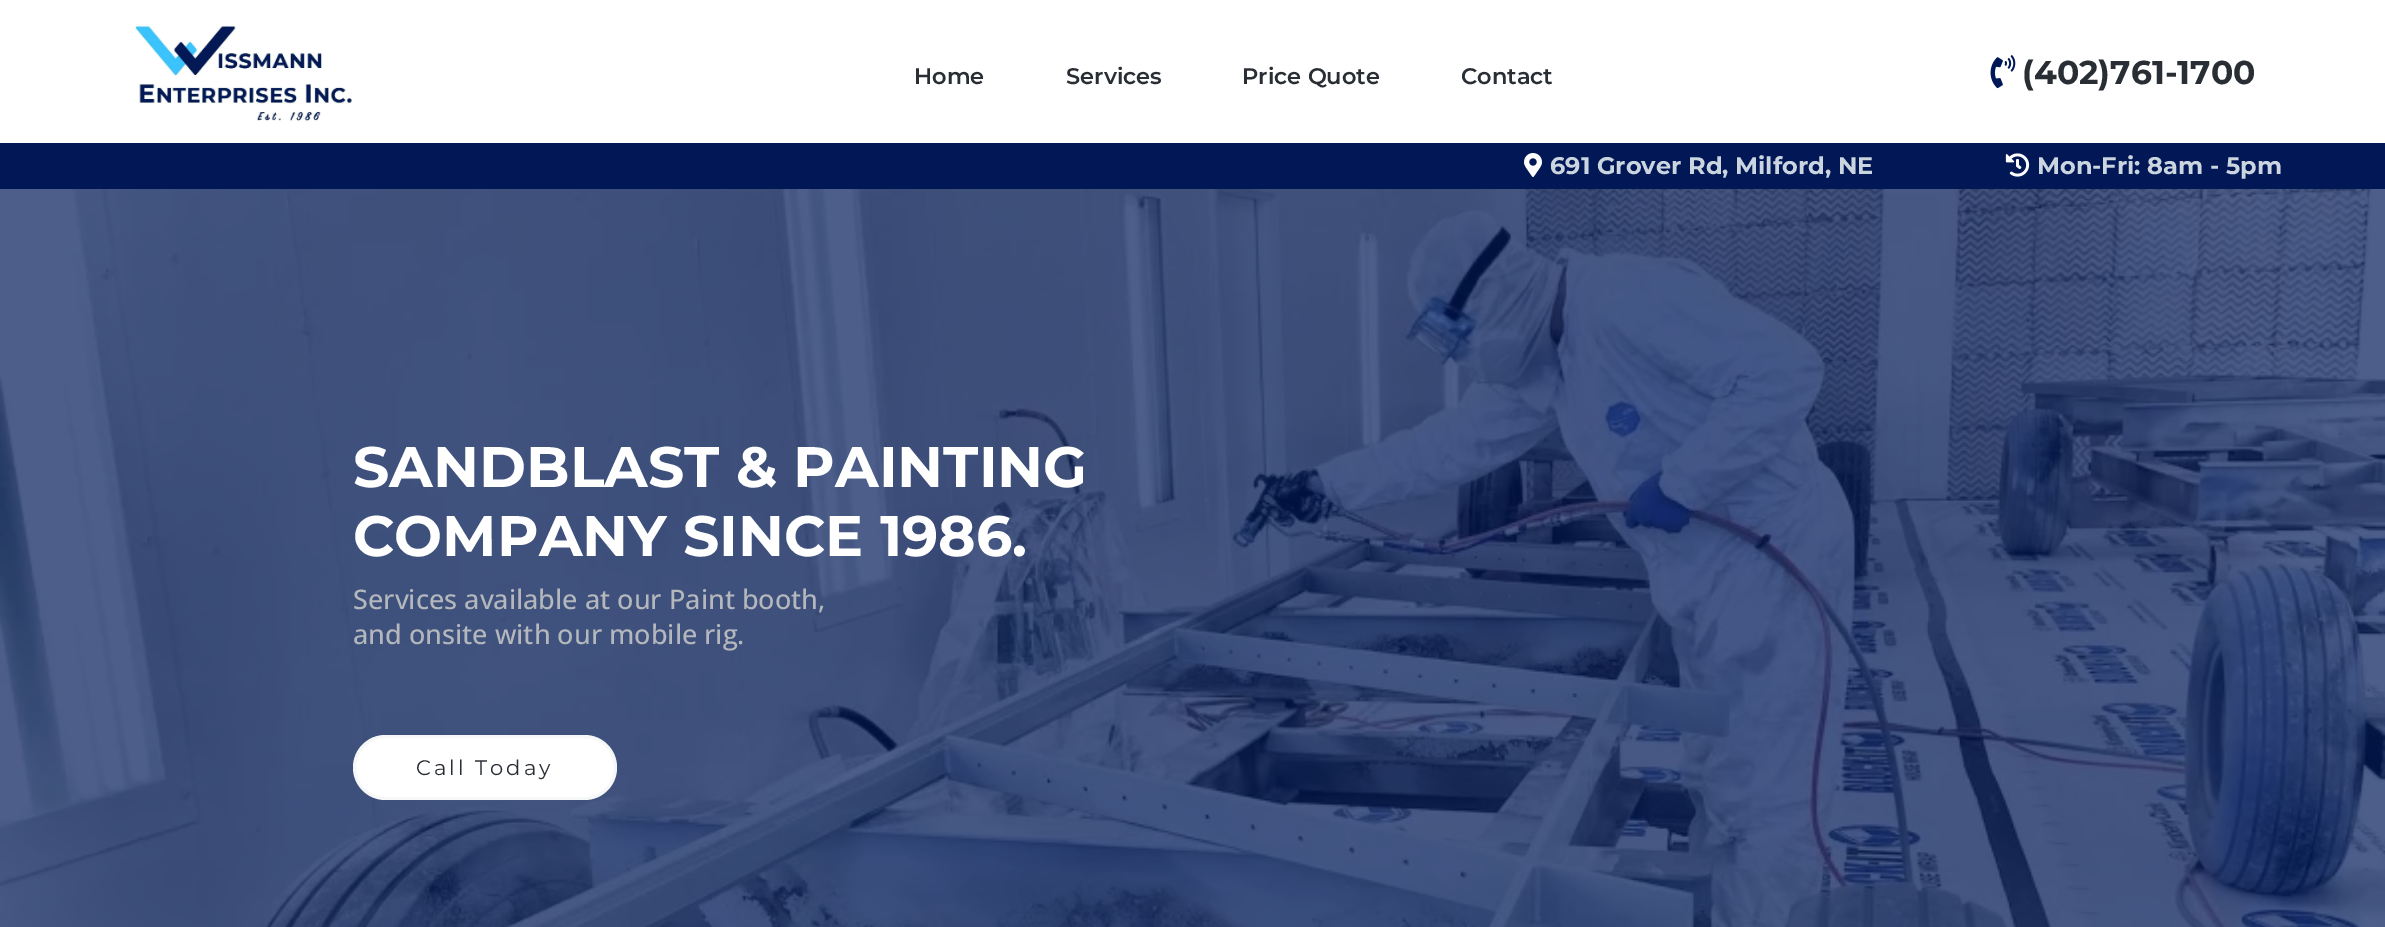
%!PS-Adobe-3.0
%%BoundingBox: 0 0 2385 927
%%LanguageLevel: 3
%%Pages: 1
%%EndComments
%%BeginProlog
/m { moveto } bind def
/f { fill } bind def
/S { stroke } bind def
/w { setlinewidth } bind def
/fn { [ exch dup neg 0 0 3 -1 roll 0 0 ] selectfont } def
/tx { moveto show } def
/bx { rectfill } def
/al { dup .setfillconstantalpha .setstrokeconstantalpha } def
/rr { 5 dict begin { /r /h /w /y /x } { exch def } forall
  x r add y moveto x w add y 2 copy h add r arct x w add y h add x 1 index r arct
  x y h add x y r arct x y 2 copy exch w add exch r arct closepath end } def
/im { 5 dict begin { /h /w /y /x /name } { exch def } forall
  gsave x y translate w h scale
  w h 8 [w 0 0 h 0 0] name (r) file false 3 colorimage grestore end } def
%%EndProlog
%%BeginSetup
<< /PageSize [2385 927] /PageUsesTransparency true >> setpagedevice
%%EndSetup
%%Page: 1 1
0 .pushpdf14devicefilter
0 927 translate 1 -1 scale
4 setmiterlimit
1 setgray
0 0 2385 927 bx
(image0.raw) 134 25 219 97 im
/Montserrat-SemiBold 22.5 fn
0.161 0.18 0.208 setrgbcolor
(Home) 914 84 tx
(Services) 1066 84 tx
(Price Quote) 1242 84 tx
(Contact) 1461 84 tx
(image1.raw) 1990 55 26 34 im
/Montserrat-Bold 33 fn
(\(402\)761-1700) 2022 84 tx
0.004 0.09 0.337 setrgbcolor
0 143 2385 46 bx
(image2.raw) 1524 153 18 24 im
/Montserrat-Bold 24 fn
0.796 0.835 0.878 setrgbcolor
(691 Grover Rd, Milford, NE) 1550 174 tx
(image3.raw) 2005 153 25 24 im
(Mon-Fri: 8am - 5pm) 2037 174 tx
0 0.094 0.341 setrgbcolor
0 189 2385 738 bx
(image4.raw) 0 189 2385 738 im
/Montserrat-Bold 57 fn
1 setgray
(SANDBLAST & PAINTING) 353 487 tx
(COMPANY SINCE 1986.) 353 556 tx
/OpenSans-Medium 27 fn
0.706 0.722 0.741 setrgbcolor
(Services available at our Paint booth,) 353 609 tx
(and onsite with our mobile rig.) 353 644 tx
1 setgray
353 735 264 65 32.5 rr f
0.08 al
0.561 0.588 0.596 setrgbcolor
3 w
354.5 736.5 261 62 31 rr S
/Montserrat-Regular 21 fn
1 al
0.161 0.18 0.208 setrgbcolor
416 775 m 3 0 (Call Today) ashow
.poppdf14devicefilter showpage
%%EOF
